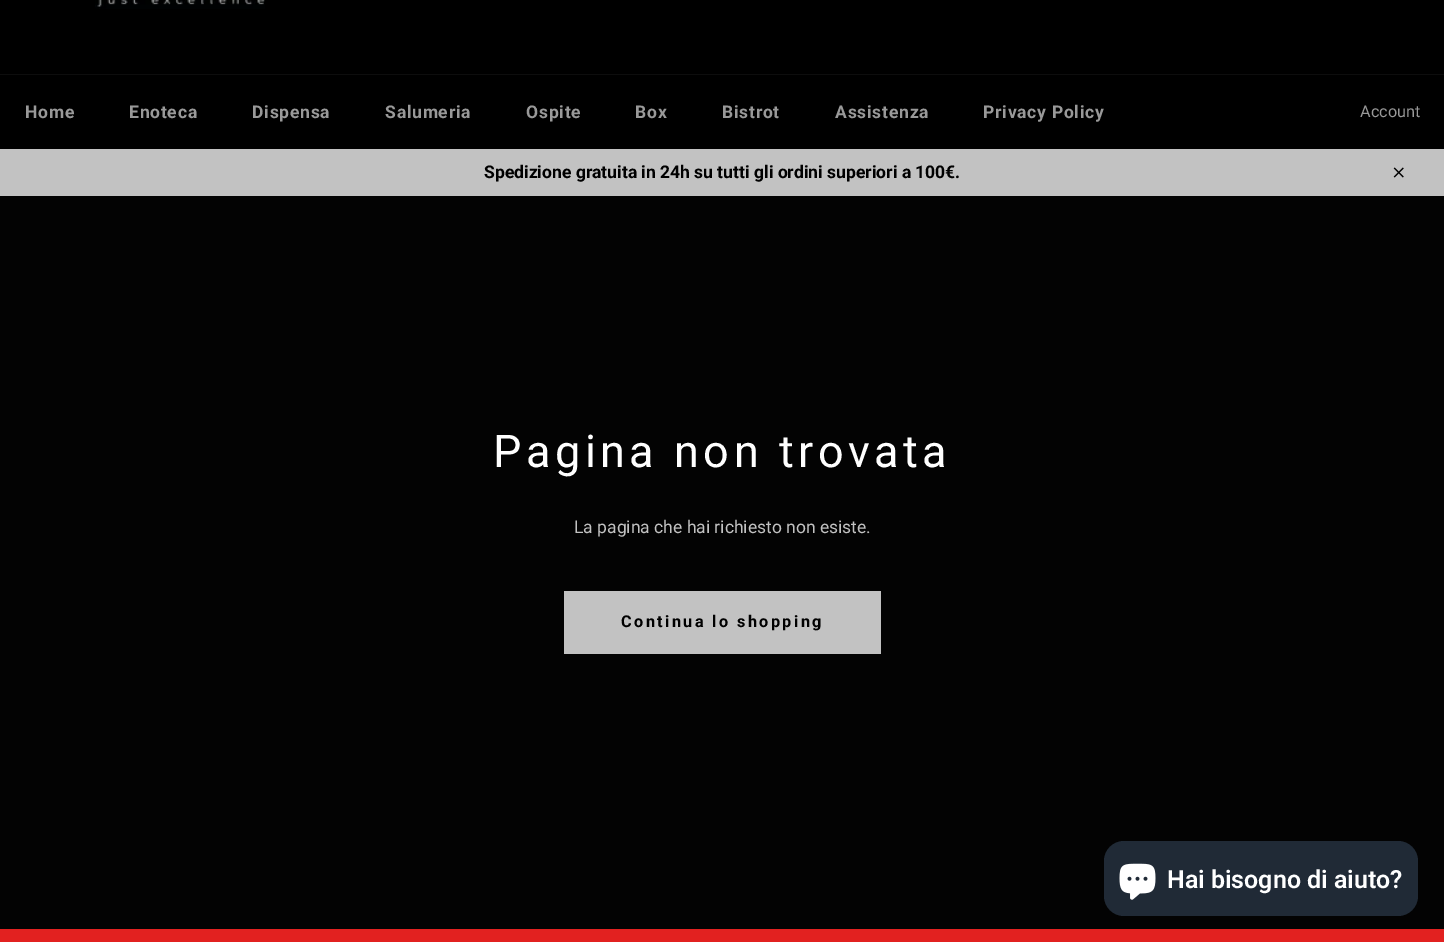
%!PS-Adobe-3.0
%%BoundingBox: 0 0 1444 942
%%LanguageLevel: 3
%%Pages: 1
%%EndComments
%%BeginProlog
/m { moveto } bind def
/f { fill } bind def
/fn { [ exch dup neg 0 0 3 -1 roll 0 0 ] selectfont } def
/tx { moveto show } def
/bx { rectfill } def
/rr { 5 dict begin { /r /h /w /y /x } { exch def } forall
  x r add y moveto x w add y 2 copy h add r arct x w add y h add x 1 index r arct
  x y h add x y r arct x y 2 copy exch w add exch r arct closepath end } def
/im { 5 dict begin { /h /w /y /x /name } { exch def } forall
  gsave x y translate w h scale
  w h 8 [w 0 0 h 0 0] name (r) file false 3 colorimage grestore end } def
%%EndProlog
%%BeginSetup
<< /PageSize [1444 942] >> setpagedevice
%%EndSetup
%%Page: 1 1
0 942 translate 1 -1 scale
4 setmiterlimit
0.012 setgray
0 0 1444 942 bx
0 setgray
0 0 1444 74 bx
(image0.raw) 95 0 170 9 im
0 75 1444 74 bx
0.051 setgray
0 74 1444 1 bx
/Roboto-Bold 17.5 fn
0.6 setgray
25 118 m 0.75 0 (Home) ashow
129 118 m 0.75 0 (Enoteca) ashow
252 118 m 0.75 0 (Dispensa) ashow
385 118 m 0.75 0 (Salumeria) ashow
526 118 m 0.75 0 (Ospite) ashow
635 118 m 0.75 0 (Box) ashow
722 118 m 0.75 0 (Bistrot) ashow
835 118 m 0.75 0 (Assistenza) ashow
983 118 m 0.75 0 (Privacy Policy) ashow
/Roboto-Regular 16.25 fn
(Account) 1360 117 tx
0.761 setgray
0 149 1444 47 bx
/Roboto-Bold 17.5 fn
0 setgray
(Spedizione gratuita in 24h su tutti gli ordini superiori a 100€.) 484 178 tx
(image1.raw) 1393 167 11 11 im
/Roboto-Regular 45 fn
1 setgray
493 467 m 4.5 0 (Pagina non trovata) ashow
/Roboto-Regular 17.5 fn
0.761 setgray
(La pagina che hai richiesto non esiste.) 574 533 tx
564 591 317 63 bx
/Roboto-Bold 16.25 fn
0 setgray
621 627 m 2.4 0 (Continua lo shopping) ashow
0.886 0.129 0.125 setrgbcolor
0 929 1444 13 bx
0.125 0.165 0.212 setrgbcolor
1104 841 314 75 20 rr f
(image2.raw) 1119 863 37 37 im
/Roboto-SemiBold 25 fn
1 setgray
(Hai bisogno di aiuto?) 1167 888 tx
showpage
%%EOF
